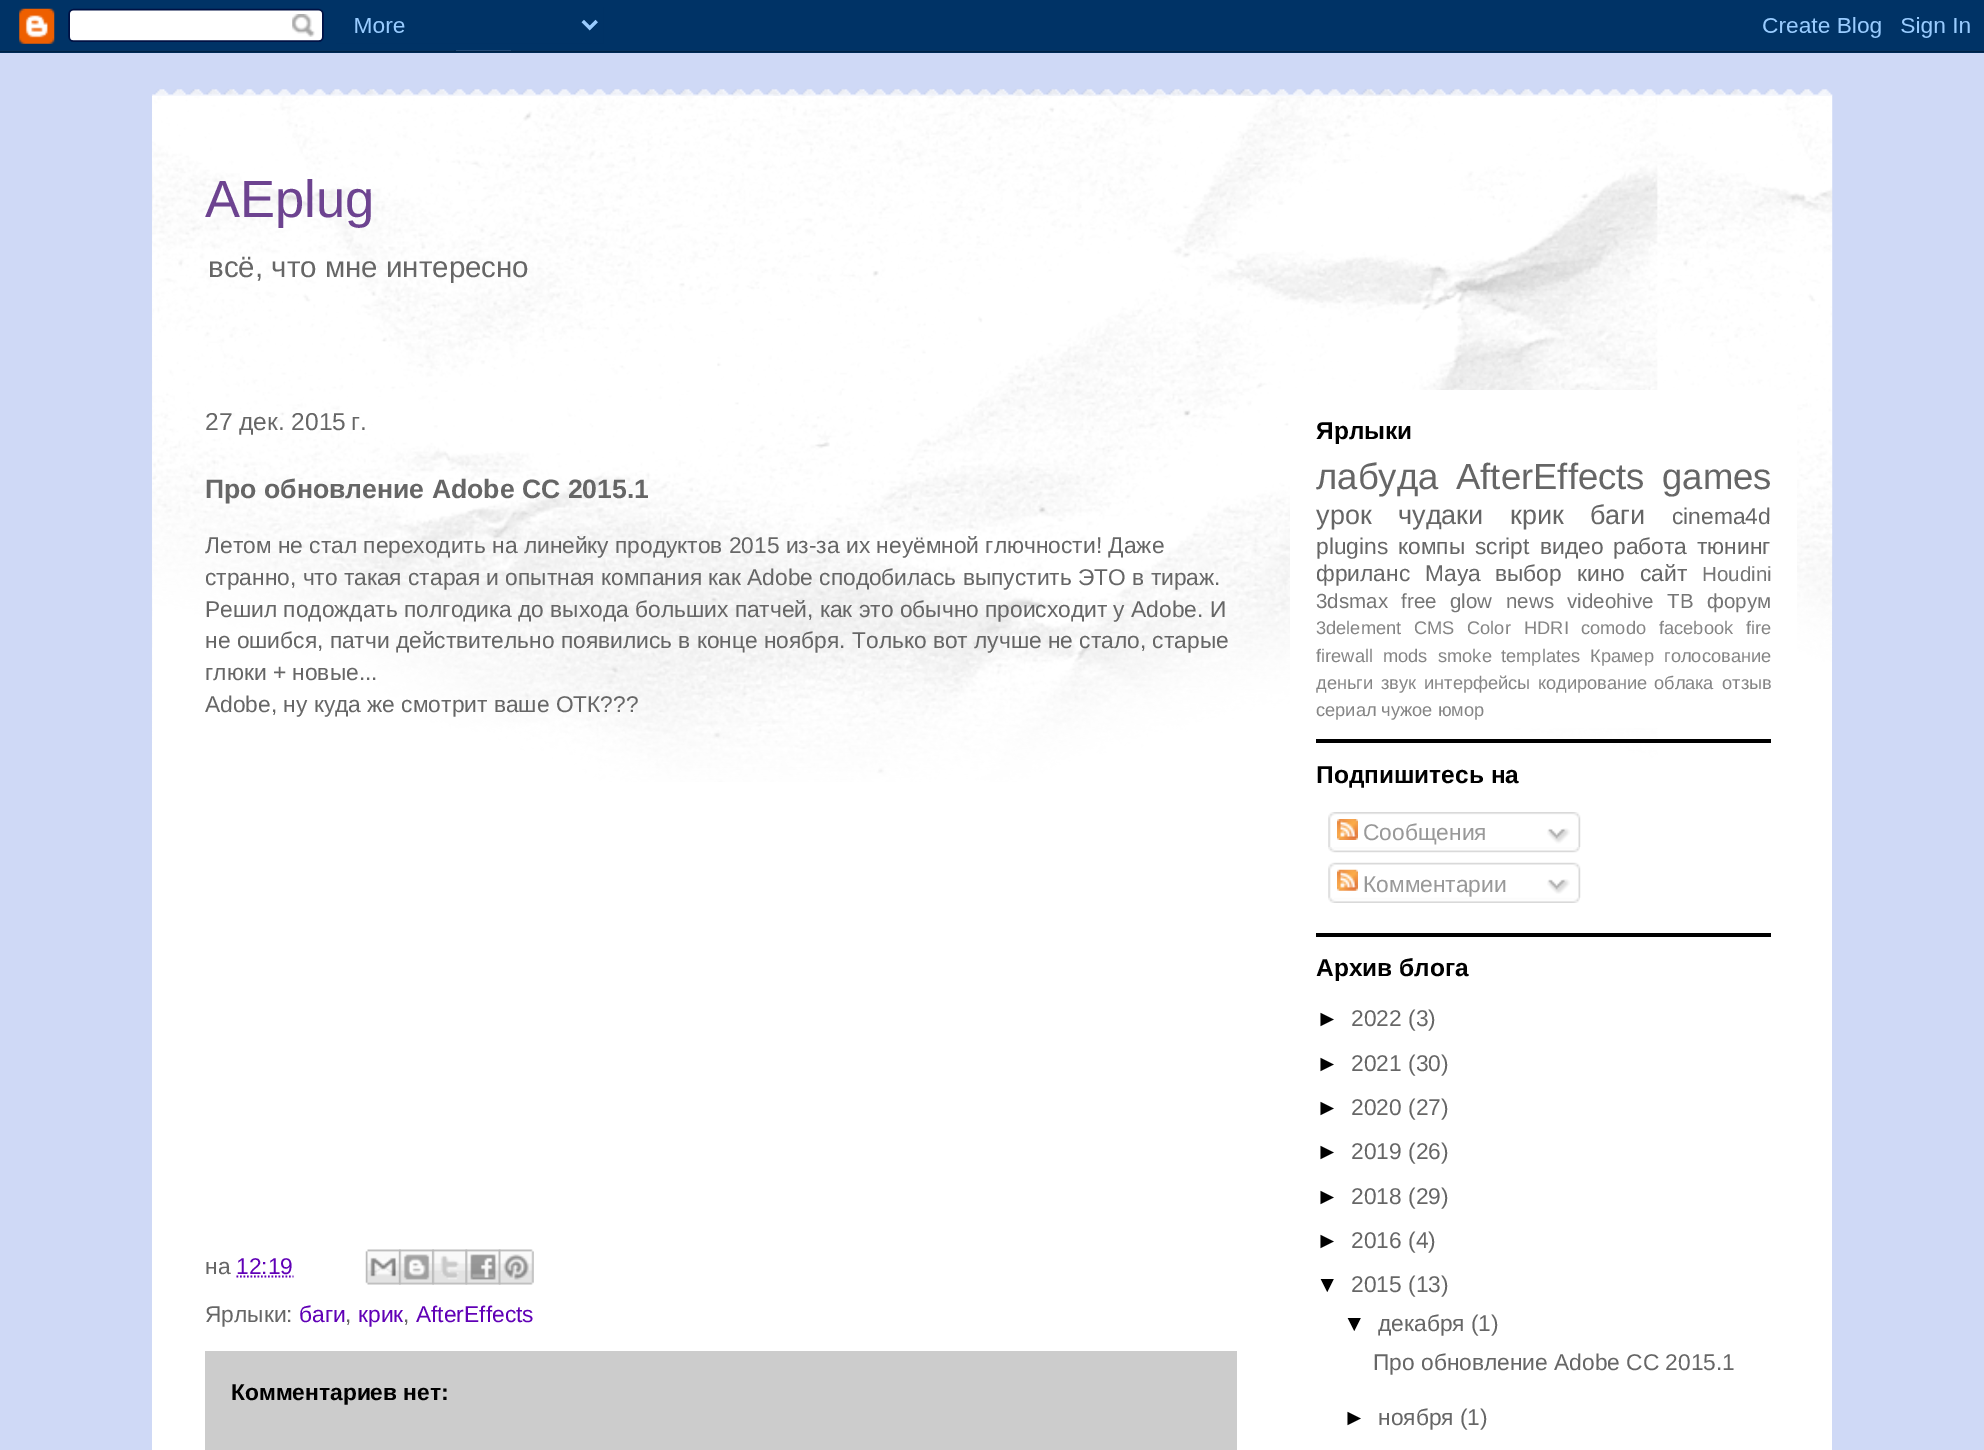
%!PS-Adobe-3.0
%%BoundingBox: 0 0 1984 1450
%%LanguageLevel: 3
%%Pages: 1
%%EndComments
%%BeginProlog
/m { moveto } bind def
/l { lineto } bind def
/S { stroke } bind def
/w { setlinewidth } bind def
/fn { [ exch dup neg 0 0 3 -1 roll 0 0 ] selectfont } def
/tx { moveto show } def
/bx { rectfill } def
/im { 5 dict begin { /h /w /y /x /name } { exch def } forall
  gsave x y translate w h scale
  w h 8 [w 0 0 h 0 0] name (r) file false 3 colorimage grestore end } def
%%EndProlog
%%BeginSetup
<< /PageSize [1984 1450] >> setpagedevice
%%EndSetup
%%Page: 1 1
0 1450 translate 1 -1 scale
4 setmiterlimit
0.812 0.851 0.965 setrgbcolor
0 0 1984 1450 bx
(image0.raw) 0 0 1984 53 im
(image1.raw) 152 89 1681 8 im
1 setgray
152 96 1680 1354 bx
(image2.raw) 152 96 1681 686 im
/LiberationSans-Regular 52.5 fn
0.427 0.263 0.565 setrgbcolor
(AEplug) 205 217 tx
/LiberationSans-Regular 29.5 fn
0.4 setgray
(всё, что мне интересно) 208 277 tx
1 setgray
1290 390 507 338 bx
/LiberationSans-Regular 24.5 fn
0.4 setgray
(27 дек. 2015 г.) 205 430 tx
/LiberationSans-Bold 26.6 fn
(Про обновление Adobe CC 2015.1) 205 498 tx
/LiberationSans-Regular 22.75 fn
(Летом не стал переходить на линейку продуктов 2015 из-за их неуёмной глючности! Даже) 205 553 tx
(странно, что такая старая и опытная компания как Adobe сподобилась выпустить ЭТО в тираж.) 205 585 tx
(Решил подождать полгодика до выхода больших патчей, как это обычно происходит у Adobe. И) 205 617 tx
(не ошибся, патчи действительно появились в конце ноября. Только вот лучше не стало, старые) 205 648 tx
(глюки + новые...) 205 680 tx
(Adobe, ну куда же смотрит ваше ОТК???) 205 712 tx
(на) 205 1274 tx
0.376 0 0.714 setrgbcolor
(12:19) 236 1274 tx
1.8 w
[1.75 1.75] 0 setdash
236.5 1276.5 m 293.5 1276.5 l S
(image3.raw) 365 1249 36 36 im
(image4.raw) 399 1249 35 36 im
(image5.raw) 432 1249 36 36 im
(image6.raw) 465 1249 36 36 im
(image7.raw) 498 1249 36 36 im
0.4 setgray
(Ярлыки:) 205 1322 tx
0.376 0 0.714 setrgbcolor
(баги) 299 1322 tx
0.4 setgray
(,) 345 1322 tx
0.376 0 0.714 setrgbcolor
(крик) 358 1322 tx
0.4 setgray
(,) 403 1322 tx
0.376 0 0.714 setrgbcolor
(AfterEffects) 416 1322 tx
0.8 setgray
205 1351 1032 99 bx
/LiberationSans-Bold 22.75 fn
0 setgray
(Комментариев нет:) 231 1400 tx
1316 739 455 4 bx
/LiberationSans-Bold 24.5 fn
(Ярлыки) 1316 439 tx
/LiberationSans-Regular 36.5 fn
0.4 setgray
(лабуда) 1316 489 tx
(AfterEffects) 1456 489 tx
(games) 1662 489 tx
/LiberationSans-Regular 27 fn
(урок) 1316 524 tx
(чудаки) 1398 524 tx
(крик) 1510 524 tx
(баги) 1590 524 tx
/LiberationSans-Regular 22.75 fn
(cinema4d) 1672 524 tx
(plugins) 1316 554 tx
(компы) 1398 554 tx
(script) 1475 554 tx
(видео) 1540 554 tx
(работа) 1613 554 tx
(тюнинг) 1697 554 tx
(фриланс) 1316 581 tx
(Maya) 1425 581 tx
(выбор) 1495 581 tx
(кино) 1577 581 tx
(сайт) 1640 581 tx
/LiberationSans-Regular 20.5 fn
0.459 setgray
(Houdini) 1702 581 tx
(3dsmax) 1316 608 tx
(free) 1401 608 tx
(glow) 1450 608 tx
(news) 1506 608 tx
(videohive) 1567 608 tx
(ТВ) 1667 608 tx
(форум) 1707 608 tx
/LiberationSans-Regular 18.25 fn
0.522 setgray
(3delement) 1316 634 tx
(CMS) 1414 634 tx
(Color) 1467 634 tx
(HDRI) 1524 634 tx
(comodo) 1581 634 tx
(facebook) 1659 634 tx
(fire) 1746 634 tx
(firewall) 1316 662 tx
(mods) 1383 662 tx
(smoke) 1438 662 tx
(templates) 1501 662 tx
(Крамер) 1590 662 tx
(голосование) 1664 662 tx
(деньги) 1316 689 tx
(звук) 1381 689 tx
(интерфейсы) 1424 689 tx
(кодирование) 1538 689 tx
(облака) 1654 689 tx
(отзыв) 1722 689 tx
(сериал чужое юмор) 1316 716 tx
0 setgray
1316 933 455 4 bx
/LiberationSans-Bold 24.5 fn
(Подпишитесь на) 1316 783 tx
(image8.raw) 1328 812 253 35 im
(image9.raw) 1337 819 21 21 im
/LiberationSans-Regular 22.75 fn
0.6 setgray
(Сообщения) 1363 840 tx
(image10.raw) 1547 828 23 16 im
(image11.raw) 1328 847 252 6 im
(image12.raw) 1328 862 253 36 im
(image13.raw) 1337 869 21 22 im
(Комментарии) 1363 892 tx
(image14.raw) 1547 879 23 15 im
(image15.raw) 1328 897 252 6 im
/LiberationSans-Bold 24.5 fn
0 setgray
(Архив блога) 1316 976 tx
/LiberationSans-Regular 22.75 fn
(►) 1316 1026 tx
0.4 setgray
(2022 \(3\)) 1351 1026 tx
0 setgray
(►) 1316 1071 tx
0.4 setgray
(2021 \(30\)) 1351 1071 tx
0 setgray
(►) 1316 1115 tx
0.4 setgray
(2020 \(27\)) 1351 1115 tx
0 setgray
(►) 1316 1159 tx
0.4 setgray
(2019 \(26\)) 1351 1159 tx
0 setgray
(►) 1316 1204 tx
0.4 setgray
(2018 \(29\)) 1351 1204 tx
0 setgray
(►) 1316 1248 tx
0.4 setgray
(2016 \(4\)) 1351 1248 tx
0 setgray
(▼) 1316 1292 tx
0.4 setgray
(2015 \(13\)) 1351 1292 tx
0 setgray
(▼) 1343 1331 tx
0.4 setgray
(декабря \(1\)) 1378 1331 tx
(Про обновление Adobe CC 2015.1) 1373 1370 tx
0 setgray
(►) 1343 1425 tx
0.4 setgray
(ноября \(1\)) 1378 1425 tx
showpage
%%EOF
